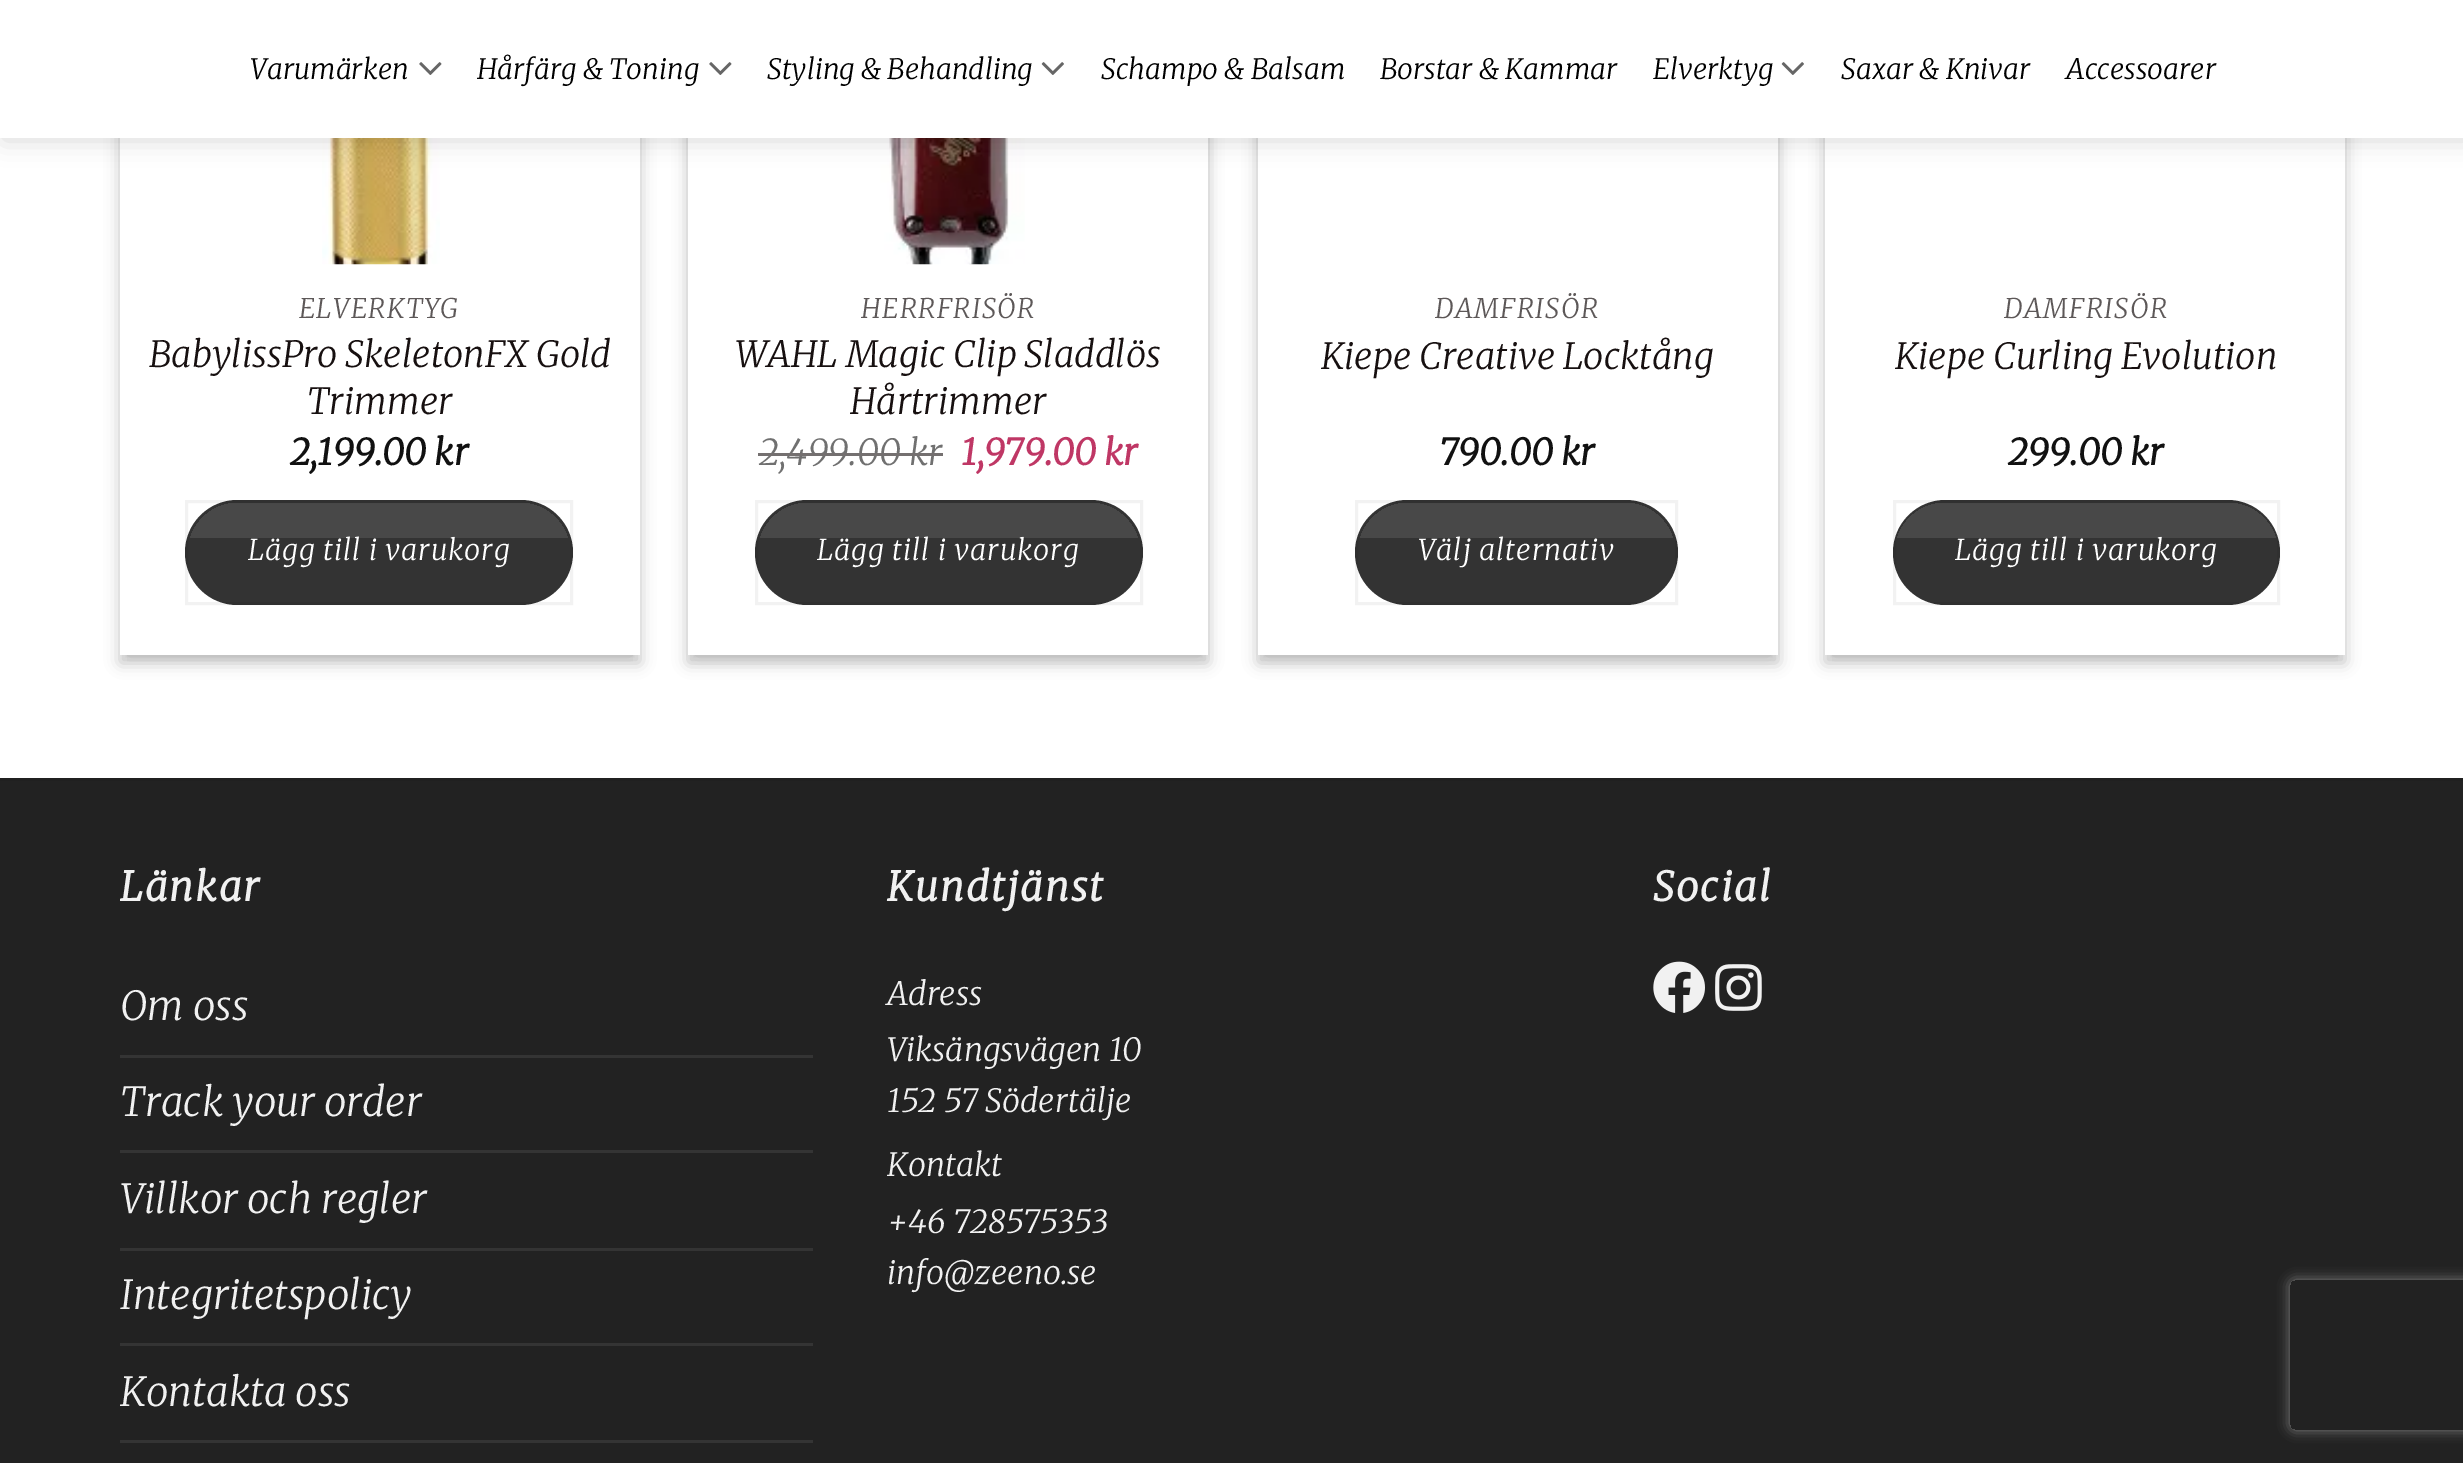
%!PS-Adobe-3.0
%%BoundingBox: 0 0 2463 1463
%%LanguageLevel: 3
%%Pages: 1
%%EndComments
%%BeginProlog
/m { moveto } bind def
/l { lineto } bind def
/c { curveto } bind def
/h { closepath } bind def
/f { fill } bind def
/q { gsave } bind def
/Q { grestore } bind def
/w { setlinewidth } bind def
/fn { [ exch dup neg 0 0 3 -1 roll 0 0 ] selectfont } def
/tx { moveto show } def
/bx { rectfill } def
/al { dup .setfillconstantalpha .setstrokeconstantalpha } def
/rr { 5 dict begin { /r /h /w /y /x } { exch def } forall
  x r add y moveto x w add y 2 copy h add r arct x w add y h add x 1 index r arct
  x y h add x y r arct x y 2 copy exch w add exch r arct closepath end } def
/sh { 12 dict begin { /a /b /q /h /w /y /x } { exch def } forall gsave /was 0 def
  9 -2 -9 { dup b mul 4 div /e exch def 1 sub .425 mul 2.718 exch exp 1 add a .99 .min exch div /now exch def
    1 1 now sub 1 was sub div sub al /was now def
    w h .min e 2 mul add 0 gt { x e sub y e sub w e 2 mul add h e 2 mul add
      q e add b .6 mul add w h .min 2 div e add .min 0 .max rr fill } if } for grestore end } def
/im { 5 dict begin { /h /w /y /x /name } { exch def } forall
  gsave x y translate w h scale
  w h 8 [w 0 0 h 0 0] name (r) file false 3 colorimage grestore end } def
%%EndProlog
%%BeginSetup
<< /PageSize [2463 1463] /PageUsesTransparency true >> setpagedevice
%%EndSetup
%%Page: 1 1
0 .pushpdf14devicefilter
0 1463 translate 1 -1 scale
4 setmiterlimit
1 setgray
0 0 2463 1463 bx
q
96 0 m 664 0 l 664 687 l 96 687 l h 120 -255 m 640 -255 l 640 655 l 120 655 l h eoclip newpath
0 setgray
120 -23 520 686 0 7.5 0.23 sh
Q
q
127 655 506 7 rectclip
0 setgray
130 -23 500 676 0 7.5 0.16 sh
Q
(image2.raw) 322 138 118 127 im
0 setgray
688 -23 520 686 0 7.5 0.23 sh
698 -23 500 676 0 7.5 0.16 sh
1 setgray
688 138 520 517 bx
(image3.raw) 862 138 163 127 im
0 setgray
1258 -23 520 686 0 7.5 0.23 sh
1268 -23 500 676 0 7.5 0.16 sh
1 setgray
1258 138 520 517 bx
0 setgray
3 3 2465 137 0 12.5 0.15 sh
q
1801 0 m 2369 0 l 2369 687 l 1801 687 l h 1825 -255 m 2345 -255 l 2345 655 l 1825 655 l h eoclip newpath
1825 -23 520 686 0 7.5 0.23 sh
Q
q
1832 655 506 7 rectclip
1835 -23 500 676 0 7.5 0.16 sh
Q
1 setgray
0 0 2463 138 bx
/Merriweather-LightItalic 28 fn
0 setgray
(Varumärken) 250 79 tx
(image0.raw) 419 62 23 13 im
(Hårfärg & Toning) 477 79 tx
(image0.raw) 709 62 23 13 im
(Styling & Behandling) 767 79 tx
(image1.raw) 1041 62 23 13 im
(Schampo & Balsam) 1101 79 tx
(Borstar & Kammar) 1380 79 tx
(Elverktyg) 1653 79 tx
(image1.raw) 1781 62 23 13 im
(Saxar & Knivar) 1841 79 tx
(Accessoarer) 2066 79 tx
/Merriweather-LightItalic 27 fn
0.365 0.345 0.345 setrgbcolor
299 318 m 1.4 0 (ELVERKTYG) ashow
/Merriweather-LightItalic 36 fn
0.09 0.063 0.063 setrgbcolor
(BabylissPro SkeletonFX Gold) 149 367 tx
(Trimmer) 307 414 tx
/Merriweather-BoldItalic 36 fn
0.067 setgray
(2,199.00 kr) 290 465 tx
0.2 setgray
185 500 388 105 52.5 rr f
0.05 al
0 setgray
3 w
186.5 501.5 385 102 rectstroke
q
188 503 382 100 50 rr clip newpath
0.1 al
1 setgray
190 503 378 35 bx
Q
/Merriweather-LightItalic 28.75 fn
1 al
1 setgray
248 560 m 0.9 0 (Lägg till i varukorg) ashow
/Merriweather-LightItalic 27 fn
0.365 0.345 0.345 setrgbcolor
861 318 m 1.4 0 (HERRFRISÖR) ashow
/Merriweather-LightItalic 36 fn
0.09 0.063 0.063 setrgbcolor
(WAHL Magic Clip Sladdlös) 735 367 tx
(Hårtrimmer) 850 414 tx
0.439 setgray
(2,499.00 kr) 759 465 tx
0.455 0.439 0.439 setrgbcolor
758 453 185 3 bx
/Merriweather-BoldItalic 36 fn
0.749 0.216 0.396 setrgbcolor
(1,979.00 kr) 961 465 tx
0.2 setgray
755 500 388 105 52.5 rr f
0.05 al
0 setgray
756.5 501.5 385 102 rectstroke
q
758 503 382 100 50 rr clip newpath
0.1 al
1 setgray
760 503 378 35 bx
Q
/Merriweather-LightItalic 28.75 fn
1 al
1 setgray
817 560 m 0.9 0 (Lägg till i varukorg) ashow
/Merriweather-LightItalic 27 fn
0.365 0.345 0.345 setrgbcolor
1435 318 m 1.4 0 (DAMFRISÖR) ashow
/Merriweather-LightItalic 36 fn
0.09 0.063 0.063 setrgbcolor
(Kiepe Creative Locktång) 1321 369 tx
/Merriweather-BoldItalic 36 fn
0.067 setgray
(790.00 kr) 1439 465 tx
0.2 setgray
1355 500 323 105 52.5 rr f
0.05 al
0 setgray
1356.5 501.5 320 102 rectstroke
q
1358 503 317 100 50 rr clip newpath
0.1 al
1 setgray
1360 503 313 35 bx
Q
/Merriweather-LightItalic 28.75 fn
1 al
1 setgray
1418 560 m 0.9 0 (Välj alternativ) ashow
/Merriweather-LightItalic 27 fn
0.365 0.345 0.345 setrgbcolor
2004 318 m 1.4 0 (DAMFRISÖR) ashow
/Merriweather-LightItalic 36 fn
0.09 0.063 0.063 setrgbcolor
(Kiepe Curling Evolution) 1895 369 tx
/Merriweather-BoldItalic 36 fn
0.067 setgray
(299.00 kr) 2008 465 tx
0.2 setgray
1893 500 387 105 52.5 rr f
0.05 al
0 setgray
1894.5 501.5 384 102 rectstroke
q
1895 503 383 100 50 rr clip newpath
0.1 al
1 setgray
1897 503 379 35 bx
Q
/Merriweather-LightItalic 28.75 fn
1 al
1 setgray
1955 560 m 0.9 0 (Lägg till i varukorg) ashow
0.133 setgray
0 781 2463 682 bx
0.125 setgray
0 778 2463 3 bx
/Merriweather-BoldItalic 40 fn
0.945 setgray
120 901 m 2 0 (Länkar) ashow
/Merriweather-LightItalic 40 fn
(Om oss) 120 1020 tx
0.204 setgray
120 1055 693 3 bx
0.945 setgray
(Track your order) 120 1116 tx
0.204 setgray
120 1150 693 3 bx
0.945 setgray
(Villkor och regler) 120 1213 tx
0.204 setgray
120 1248 693 3 bx
0.945 setgray
(Integritetspolicy) 120 1309 tx
0.204 setgray
120 1343 693 3 bx
0.945 setgray
(Kontakta oss) 120 1406 tx
0.204 setgray
120 1440 693 3 bx
/Merriweather-BoldItalic 40 fn
0.945 setgray
887 901 m 2 0 (Kundtjänst) ashow
/Merriweather-LightItalic 32 fn
(Adress) 887 1005 tx
(Viksängsvägen 10) 887 1061 tx
(152 57 Södertälje) 887 1112 tx
(Kontakt) 887 1176 tx
(+46 728575353) 887 1233 tx
(info@zeeno.se) 887 1284 tx
/Merriweather-BoldItalic 40 fn
1653 901 m 2 0 (Social) ashow
(image4.raw) 1653 961 52 52 im
(image5.raw) 1715 964 47 47 im
q
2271 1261 m 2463 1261 l 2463 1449 l 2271 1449 l h 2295 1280 m 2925 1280 l 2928 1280 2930 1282 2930 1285 c 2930 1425 l 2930 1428 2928 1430 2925 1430 c 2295 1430 l 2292 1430 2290 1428 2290 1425 c 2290 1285 l 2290 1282 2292 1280 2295 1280 c h eoclip newpath
0.502 setgray
2290 1280 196 150 5 6 1 sh
Q
.poppdf14devicefilter showpage
%%EOF
